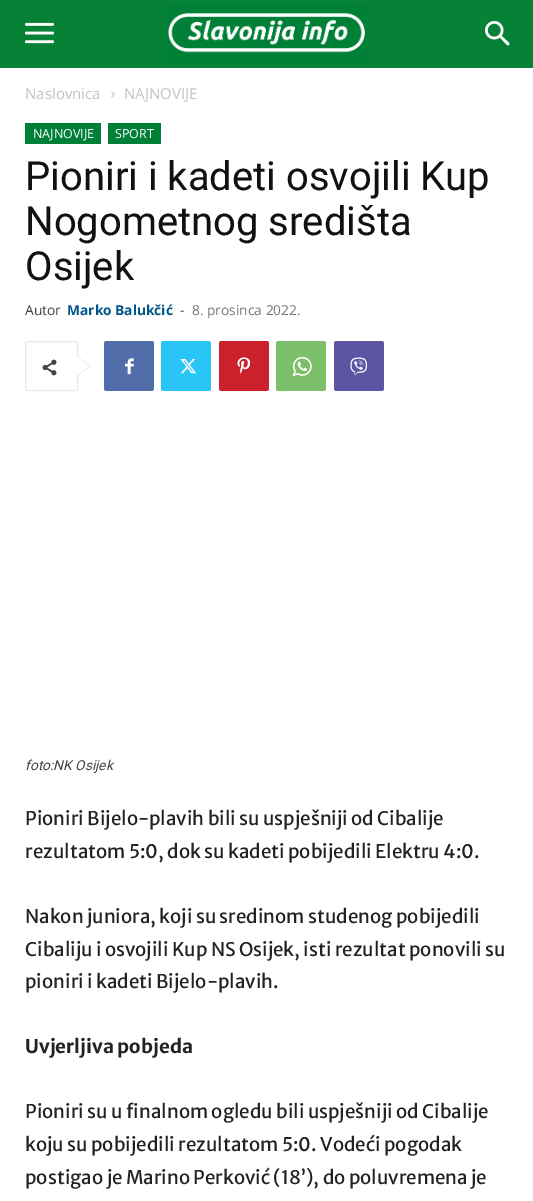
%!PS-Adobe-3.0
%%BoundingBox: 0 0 533 1201
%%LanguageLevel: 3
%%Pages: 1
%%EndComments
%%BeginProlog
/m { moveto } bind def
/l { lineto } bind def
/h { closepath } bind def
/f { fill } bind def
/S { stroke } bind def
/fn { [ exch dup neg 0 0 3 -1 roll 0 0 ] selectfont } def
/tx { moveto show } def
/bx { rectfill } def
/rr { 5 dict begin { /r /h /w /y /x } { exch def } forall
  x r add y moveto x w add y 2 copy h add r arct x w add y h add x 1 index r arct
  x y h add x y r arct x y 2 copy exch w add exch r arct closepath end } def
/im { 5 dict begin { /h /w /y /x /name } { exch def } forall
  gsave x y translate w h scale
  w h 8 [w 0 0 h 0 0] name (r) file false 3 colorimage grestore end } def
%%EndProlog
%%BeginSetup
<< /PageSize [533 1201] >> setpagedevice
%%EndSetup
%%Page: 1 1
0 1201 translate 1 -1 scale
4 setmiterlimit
1 setgray
0 0 533 1201 bx
0.027 0.506 0.212 setrgbcolor
0 0 533 68 bx
(image0.raw) 25 22 29 22 im
(image1.raw) 166 4 201 60 im
(image2.raw) 485 21 25 25 im
/OpenSans-Regular 15 fn
0.765 setgray
(Naslovnica) 25 99 tx
(image3.raw) 111 91 4 7 im
(NAJNOVIJE) 124 99 tx
0 0.502 0.216 setrgbcolor
25 123 76 21 bx
/OpenSans-Regular 12.5 fn
1 setgray
(NAJNOVIJE) 33 138 tx
0 0.502 0.216 setrgbcolor
108 123 53 21 bx
1 setgray
(SPORT) 115 138 tx
/Roboto-Regular 40 fn
0.067 setgray
(Pioniri i kadeti osvojili Kup) 25 190 tx
(Nogometnog središta) 25 235 tx
(Osijek) 25 280 tx
/OpenSans-Regular 13.75 fn
0.267 setgray
(Autor) 25 315 tx
/OpenSans-Bold 13.75 fn
0 0.337 0.537 setrgbcolor
(Marko Balukčić) 67 315 tx
/OpenSans-Regular 13.75 fn
0.267 setgray
(-) 180 315 tx
0.463 setgray
(8. prosinca 2022.) 192 315 tx
0.914 setgray
25.5 341.5 52 49 2 rr S
76 377.5 m 76 355 l 90 366 l h f
(image4.raw) 42 359 15 17 im
1 setgray
76 376 m 76 356 l 89 366 l h f
0.318 0.431 0.671 setrgbcolor
104 341 50 50 2.5 rr f
(image5.raw) 125 358 9 17 im
0.161 0.773 0.965 setrgbcolor
161 341 50 50 2.5 rr f
(image6.raw) 180 359 16 15 im
0.792 0.129 0.165 setrgbcolor
219 341 50 50 2.5 rr f
(image7.raw) 237 357 14 17 im
0.482 0.749 0.416 setrgbcolor
276 341 50 50 2.5 rr f
(image8.raw) 292 356 20 21 im
0.365 0.329 0.643 setrgbcolor
334 341 50 50 2.5 rr f
(image9.raw) 350 357 17 18 im
/Roboto-Italic 13.75 fn
0.267 setgray
(foto:NK Osijek) 25 770 tx
/MerriweatherSans-Regular 18.75 fn
0.133 setgray
(Pioniri Bijelo-plavih bili su uspješniji od Cibalije) 25 825 tx
(rezultatom 5:0, dok su kadeti pobijedili Elektru 4:0.) 25 858 tx
(Nakon juniora, koji su sredinom studenog pobijedili) 25 923 tx
(Cibaliju i osvojili Kup NS Osijek, isti rezultat ponovili su) 25 956 tx
(pioniri i kadeti Bijelo-plavih.) 25 988 tx
/MerriweatherSans-Bold 18.75 fn
(Uvjerljiva pobjeda) 25 1053 tx
/MerriweatherSans-Regular 18.75 fn
(Pioniri su u finalnom ogledu bili uspješniji od Cibalije) 25 1118 tx
(koju su pobijedili rezultatom 5:0. Vodeći pogodak) 25 1151 tx
(postigao je Marino Perković \(18’\), do poluvremena je) 25 1184 tx
showpage
%%EOF
